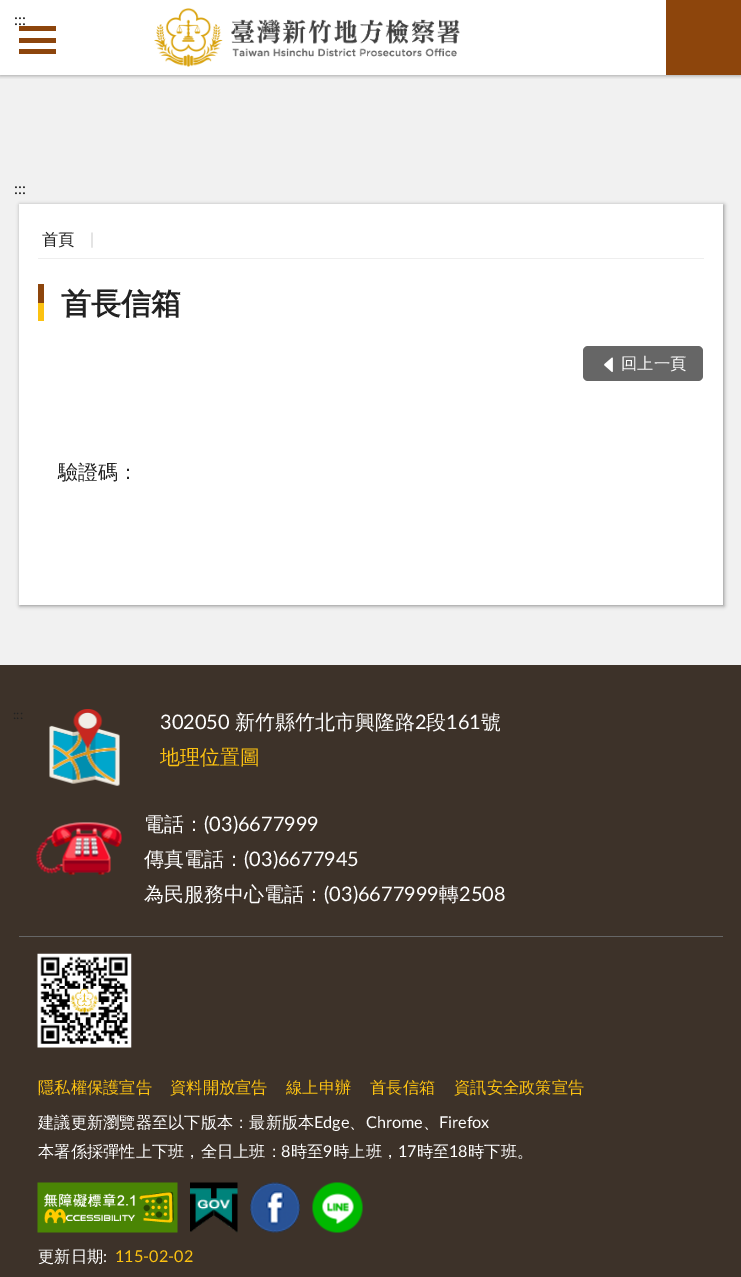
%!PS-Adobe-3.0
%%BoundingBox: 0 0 741 1277
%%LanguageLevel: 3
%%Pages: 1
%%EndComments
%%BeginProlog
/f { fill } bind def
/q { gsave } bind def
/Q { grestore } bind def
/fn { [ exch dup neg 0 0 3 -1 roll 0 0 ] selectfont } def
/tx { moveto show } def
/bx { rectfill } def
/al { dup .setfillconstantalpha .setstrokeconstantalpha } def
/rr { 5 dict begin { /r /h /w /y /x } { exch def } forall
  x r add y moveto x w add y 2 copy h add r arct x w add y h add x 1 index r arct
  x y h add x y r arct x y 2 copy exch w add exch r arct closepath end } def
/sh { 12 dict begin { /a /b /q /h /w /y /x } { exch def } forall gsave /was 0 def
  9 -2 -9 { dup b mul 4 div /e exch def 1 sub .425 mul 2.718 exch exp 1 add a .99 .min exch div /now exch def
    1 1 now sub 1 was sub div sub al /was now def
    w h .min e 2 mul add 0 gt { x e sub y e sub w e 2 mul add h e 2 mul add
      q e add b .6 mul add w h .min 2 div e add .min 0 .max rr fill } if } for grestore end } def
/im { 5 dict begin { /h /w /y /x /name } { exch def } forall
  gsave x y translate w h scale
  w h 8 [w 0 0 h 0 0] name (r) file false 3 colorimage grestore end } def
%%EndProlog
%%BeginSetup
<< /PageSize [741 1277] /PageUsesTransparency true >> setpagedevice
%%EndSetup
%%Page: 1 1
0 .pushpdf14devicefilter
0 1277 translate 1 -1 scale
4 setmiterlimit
1 setgray
0 0 741 1277 bx
0.945 setgray
0 75 741 590 bx
q
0 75 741 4 rectclip
0 setgray
0 1 741 75 0 2 0.3 sh
Q
/Lato-Regular 16 fn
0.133 setgray
(:::) 14 25 tx
(image0.raw) 154 8 306 59 im
0.553 0.271 0.047 setrgbcolor
666 0 75 75 bx
19 26 37 5 bx
19 38 37 5 bx
19 49 37 5 bx
0.133 setgray
(:::) 14 194 tx
0 setgray
20 205 704 401 0 2 0.4 sh
1 setgray
19 204 704 401 bx
0.933 setgray
38 258 666 1 bx
/WenQuanYiZenHei-Medium 16.25 fn
0.133 setgray
(首頁) 42 245 tx
/Lato-Regular 16.25 fn
0.8 setgray
(|) 90 245 tx
0.553 0.271 0.047 setrgbcolor
38 284 6 19 bx
/WenQuanYiZenHei-Bold 30 fn
0.133 setgray
(首長信箱) 61 314 tx
0.988 0.761 0.067 setrgbcolor
38 303 6 18 bx
0.4 setgray
583 346 120 35 5 rr f
(image1.raw) 604 357 9 15 im
/WenQuanYiZenHei-Medium 16.25 fn
1 setgray
(回上一頁) 621 369 tx
/WenQuanYiZenHei-Medium 20 fn
0.133 setgray
(驗證碼：) 58 479 tx
0.239 0.196 0.161 setrgbcolor
0 665 741 612 bx
/Lato-Regular 13 fn
0.133 setgray
(:::) 13 719 tx
(image2.raw) 49 709 71 77 im
/Lato-Regular 20 fn
1 setgray
(302050) 160 729 tx
/WenQuanYiZenHei-Medium 20 fn
(新竹縣竹北市興隆路) 235 729 tx
/Lato-Regular 20 fn
(2) 415 729 tx
/WenQuanYiZenHei-Medium 20 fn
(段) 426 729 tx
/Lato-Regular 20 fn
(161) 446 729 tx
/WenQuanYiZenHei-Medium 20 fn
(號) 481 729 tx
0.988 0.761 0.067 setrgbcolor
(地理位置圖) 160 764 tx
(image3.raw) 36 822 86 53 im
1 setgray
(電話：) 144 831 tx
/Lato-Regular 20 fn
(\(03\)6677999) 204 831 tx
/WenQuanYiZenHei-Medium 20 fn
(傳真電話：) 144 866 tx
/Lato-Regular 20 fn
(\(03\)6677945) 244 866 tx
/WenQuanYiZenHei-Medium 20 fn
(為民服務中心電話：) 144 901 tx
/Lato-Regular 20 fn
(\(03\)6677999) 324 901 tx
/WenQuanYiZenHei-Medium 20 fn
(轉) 439 901 tx
/Lato-Regular 20 fn
(2508) 459 901 tx
0.4 setgray
19 936 704 1 bx
(image4.raw) 37 953 95 95 im
/WenQuanYiZenHei-Medium 16.25 fn
0.988 0.761 0.067 setrgbcolor
(隱私權保護宣告) 38 1093 tx
(資料開放宣告) 170 1093 tx
(線上申辦) 286 1093 tx
(首長信箱) 370 1093 tx
(資訊安全政策宣告) 454 1093 tx
1 setgray
(建議更新瀏覽器至以下版本：最新版本) 38 1128 tx
/Lato-Regular 16.25 fn
(Edge) 314 1128 tx
/WenQuanYiZenHei-Medium 16.25 fn
(、) 349 1128 tx
/Lato-Regular 16.25 fn
(Chrome) 366 1128 tx
/WenQuanYiZenHei-Medium 16.25 fn
(、) 423 1128 tx
/Lato-Regular 16.25 fn
(Firefox) 439 1128 tx
/WenQuanYiZenHei-Medium 16.25 fn
(本署係採彈性上下班，全日上班：) 38 1157 tx
/Lato-Regular 16.25 fn
(8) 281 1157 tx
/WenQuanYiZenHei-Medium 16.25 fn
(時至) 291 1157 tx
/Lato-Regular 16.25 fn
(9) 323 1157 tx
/WenQuanYiZenHei-Medium 16.25 fn
(時上班，) 333 1157 tx
/Lato-Regular 16.25 fn
(17) 398 1157 tx
/WenQuanYiZenHei-Medium 16.25 fn
(時至) 417 1157 tx
/Lato-Regular 16.25 fn
(18) 449 1157 tx
/WenQuanYiZenHei-Medium 16.25 fn
(時下班。) 468 1157 tx
(image5.raw) 37 1182 141 51 im
(image6.raw) 190 1182 48 51 im
(image7.raw) 250 1182 50 51 im
(image8.raw) 312 1182 51 51 im
(更新日期) 38 1262 tx
/Lato-Regular 16.25 fn
(:) 103 1262 tx
0.988 0.761 0.067 setrgbcolor
(115-02-02) 115 1262 tx
.poppdf14devicefilter showpage
%%EOF
